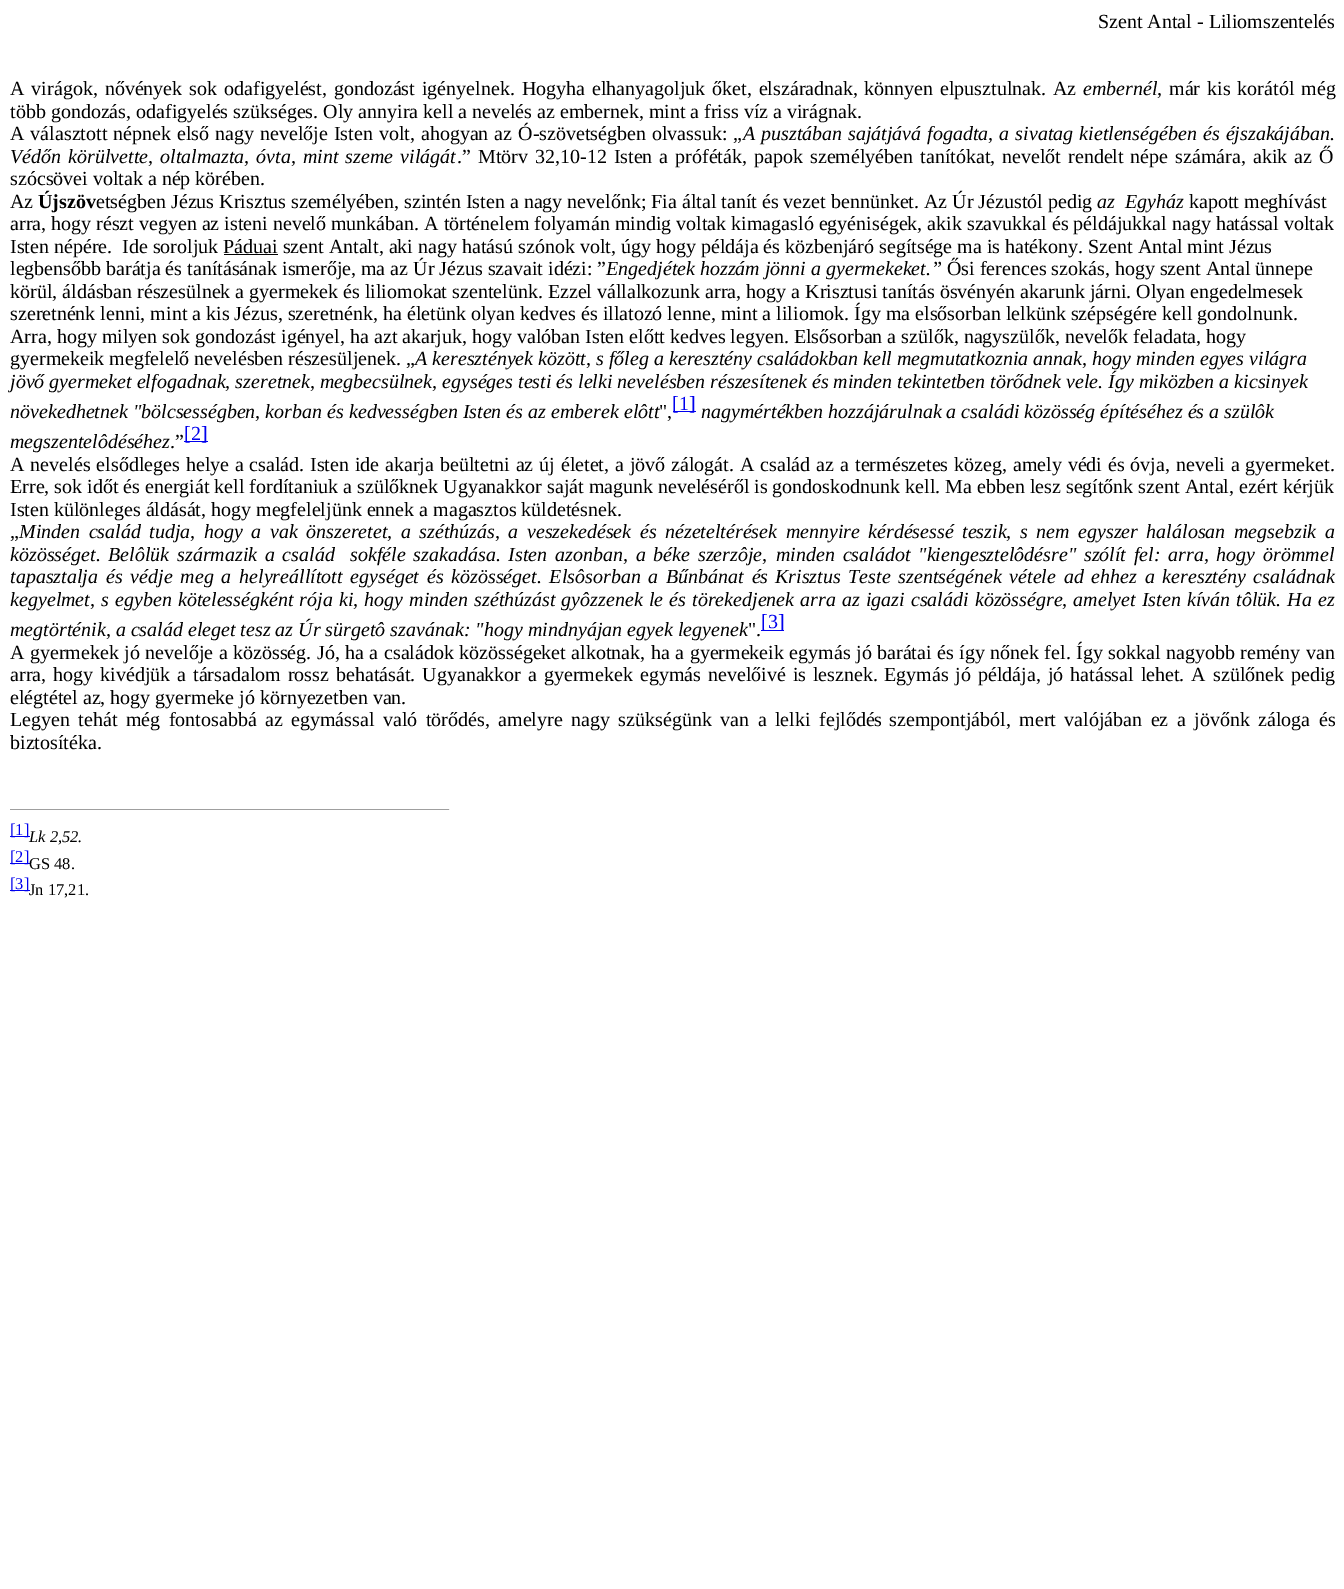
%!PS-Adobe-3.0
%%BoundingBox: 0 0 1344 1589
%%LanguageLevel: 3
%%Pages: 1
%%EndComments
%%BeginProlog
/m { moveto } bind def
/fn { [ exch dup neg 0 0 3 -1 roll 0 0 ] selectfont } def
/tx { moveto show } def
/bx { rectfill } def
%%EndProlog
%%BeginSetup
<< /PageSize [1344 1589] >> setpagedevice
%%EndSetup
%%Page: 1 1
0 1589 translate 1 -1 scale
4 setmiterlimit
1 setgray
0 0 1344 1589 bx
/LiberationSerif-Regular 20 fn
0 setgray
(Szent Antal - Liliomszentelés) 1098 28 tx
10 95 m 2 0 32 (A virágok, nővények sok) widthshow
224 95 m 2 0 32 (odafigyelést, gondozást igényelnek. Hogyha elhanyagoljuk őket, elszáradnak,) widthshow
864 95 m 2 0 32 (könnyen elpusztulnak. Az) widthshow
/LiberationSerif-Italic 20 fn
(embernél,) 1083 95 tx
/LiberationSerif-Regular 20 fn
1169 95 m 2 0 32 (már kis korától még) widthshow
(több gondozás, odafigyelés szükséges. Oly annyira kell a nevelés az embernek, mint a friss víz a virágnak.) 10 118 tx
10 140 m 1 0 32 (A választott népnek első nagy) widthshow
260 140 m 1 0 32 (nevelője Isten volt, ahogyan az Ó-szövetségben olvassuk: „) widthshow
/LiberationSerif-Italic 20 fn
743 140 m 1 0 32 (A pusztában) widthshow
848 140 m 1 0 32 (sajátjává fogadta, a sivatag kietlenségében és éjszakájában.) widthshow
10 163 m 2 0 32 (Védőn körülvette,) widthshow
160 163 m 2 0 32 (oltalmazta, óvta, mint szeme világát) widthshow
/LiberationSerif-Regular 20 fn
457 163 m 2 0 32 (.” Mtörv 32,10-12 Isten a próféták,) widthshow
754 163 m 2 0 32 (papok személyében tanítókat, nevelőt rendelt népe számára, akik az Ő) widthshow
(szócsövei voltak a nép körében.) 10 185 tx
(Az) 10 208 tx
/LiberationSerif-Bold 20 fn
(Újszöv) 38 208 tx
/LiberationSerif-Regular 20 fn
(etségben Jézus Krisztus személyében, szintén Isten a nagy nevelőnk; Fia által tanít és vezet bennünket. Az Úr Jézustól pedig) 96 208 tx
/LiberationSerif-Italic 20 fn
(az  Egyház) 1097 208 tx
/LiberationSerif-Regular 20 fn
(kapott meghívást) 1189 208 tx
(arra, hogy részt vegyen az isteni nevelő munkában. A történelem folyamán mindig voltak kimagasló egyéniségek, akik szavukkal és példájukkal nagy hatással voltak) 10 230 tx
(Isten népére.) 10 253 tx
(Ide soroljuk Páduai szent Antalt, aki nagy hatású szónok volt, úgy hogy példája és közbenjáró segítsége ma is hatékony. Szent Antal mint Jézus) 122 253 tx
224 254 54 1 bx
(legbensőbb barátja és tanításának ismerője, ma az Úr Jézus szavait idézi: ”) 10 275 tx
/LiberationSerif-Italic 20 fn
(Engedjétek hozzám jönni a gyermekeket.”) 606 275 tx
/LiberationSerif-Regular 20 fn
(Ősi ferences szokás, hogy szent Antal ünnepe) 947 275 tx
(körül, áldásban részesülnek a gyermekek és liliomokat szentelünk. Ezzel vállalkozunk arra, hogy a Krisztusi tanítás ösvényén akarunk járni. Olyan engedelmesek) 10 298 tx
(szeretnénk lenni, mint a kis Jézus, szeretnénk, ha életünk olyan kedves és illatozó lenne, mint a liliomok. Így ma elsősorban lelkünk szépségére kell gondolnunk.) 10 320 tx
(Arra, hogy milyen sok gondozást igényel, ha azt akarjuk, hogy valóban Isten előtt kedves legyen. Elsősorban a szülők, nagyszülők, nevelők feladata, hogy) 10 343 tx
(gyermekeik megfelelő nevelésben részesüljenek. „) 10 365 tx
/LiberationSerif-Italic 20 fn
(A keresztények között, s főleg a keresztény családokban kell megmutatkoznia annak, hogy minden egyes világra) 415 365 tx
(jövő gyermeket elfogadnak, szeretnek, megbecsülnek, egységes testi és lelki nevelésben részesítenek és minden tekintetben törődnek vele. Így miközben a kicsinyek) 10 388 tx
(növekedhetnek "bölcsességben, korban és kedvességben Isten és az emberek elôtt) 10 418 tx
/LiberationSerif-Regular 20 fn
(",) 659 418 tx
0 0 0.933 setrgbcolor
673 411 23 1 bx
([1]) 672 410 tx
/LiberationSerif-Italic 20 fn
0 setgray
(nagymértékben hozzájárulnak a családi közösség építéséhez és a szülôk) 701 418 tx
(megszentelôdéséhez) 10 448 tx
/LiberationSerif-Regular 20 fn
(.”) 170 448 tx
0 0 0.933 setrgbcolor
184 441 24 1 bx
([2]) 184 440 tx
0 setgray
10 471 m 1 0 32 (A nevelés elsődleges helye a) widthshow
249 471 m 0.9 0 32 (család. Isten ide akarja beültetni az új életet, a jövő zálogát. A család az a) widthshow
855 471 m 0.9 0 32 (természetes közeg, amely védi és óvja, neveli a gyermeket.) widthshow
(Erre, sok időt és energiát kell fordítaniuk a szülőknek Ugyanakkor saját magunk neveléséről is gondoskodnunk kell. Ma ebben lesz segítőnk szent Antal, ezért kérjük) 10 493 tx
(Isten különleges áldását, hogy megfeleljünk ennek a magasztos küldetésnek.) 10 516 tx
(„) 10 538 tx
/LiberationSerif-Italic 20 fn
19 538 m 3.5 0 32 (Minden család tudja, hogy a) widthshow
270 538 m 3.5 0 32 (vak önszeretet, a széthúzás, a veszekedések és nézeteltérések mennyire) widthshow
868 538 m 3.5 0 32 (kérdésessé teszik, s nem egyszer halálosan megsebzik a) widthshow
10 561 m 2.75 0 32 (közösséget. Belôlük) widthshow
177 561 m 2.75 0 32 (származik a család  sokféle szakadása. Isten azonban, a béke szerzôje,) widthshow
776 561 m 2.75 0 32 (minden családot "kiengesztelôdésre" szólít fel: arra, hogy örömmel) widthshow
(tapasztalja) 10 583 tx
106 583 m 2.75 0 32 (és védje meg a helyreállított egységet és közösséget. Elsôsorban a Bűnbánat és) widthshow
775 583 m 2.75 0 32 (Krisztus Teste szentségének vétele ad ehhez a keresztény családnak) widthshow
10 606 m 1.1 0 32 (kegyelmet, s) widthshow
115 606 m 1.1 0 32 (egyben kötelességként rója ki, hogy minden széthúzást gyôzzenek le és) widthshow
692 606 m 1.1 0 32 (törekedjenek arra az igazi családi közösségre, amelyet Isten kíván tôlük. Ha ez) widthshow
(megtörténik, a család eleget tesz az Úr sürgetô szavának: "hogy mindnyájan egyek legyenek) 10 636 tx
/LiberationSerif-Regular 20 fn
(".) 748 636 tx
0 0 0.933 setrgbcolor
761 630 23 1 bx
([3]) 761 628 tx
0 setgray
10 659 m 0.5 0 32 (A gyermekek jó nevelője a) widthshow
233 659 m 0.5 0 32 (közösség. Jó, ha a családok közösségeket alkotnak, ha a gyermekeik egymás jó) widthshow
877 659 m 0.5 0 32 (barátai és így nőnek fel. Így sokkal nagyobb remény van) widthshow
10 681 m 2 0 32 (arra, hogy kivédjük a) widthshow
193 681 m 2 0 32 (társadalom rossz behatását. Ugyanakkor a gyermekek egymás nevelőivé is lesznek.) widthshow
884 681 m 2 0 32 (Egymás jó példája, jó hatással lehet. A szülőnek pedig) widthshow
(elégtétel az, hogy gyermeke jó környezetben van.) 10 704 tx
10 726 m 3.5 0 32 (Legyen tehát még fontosabbá az) widthshow
291 726 m 3.5 0 32 (egymással való törődés, amelyre nagy szükségünk van a lelki fejlődés) widthshow
889 726 m 3.5 0 32 (szempontjából, mert valójában ez a jövőnk záloga és) widthshow
(biztosítéka.) 10 749 tx
0.624 setgray
10 809 440 1 bx
0.933 setgray
449 809 1 1 bx
0 0 0.933 setrgbcolor
10 836 20 1 bx
/LiberationSerif-Regular 16.5 fn
([1]) 10 835 tx
/LiberationSerif-Italic 16.5 fn
0 setgray
(Lk 2,52.) 29 842 tx
0 0 0.933 setrgbcolor
10 863 20 1 bx
/LiberationSerif-Regular 16.5 fn
([2]) 10 862 tx
0 setgray
(GS 48.) 29 869 tx
0 0 0.933 setrgbcolor
10 890 20 1 bx
([3]) 10 889 tx
0 setgray
(Jn 17,21.) 29 895 tx
showpage
%%EOF
